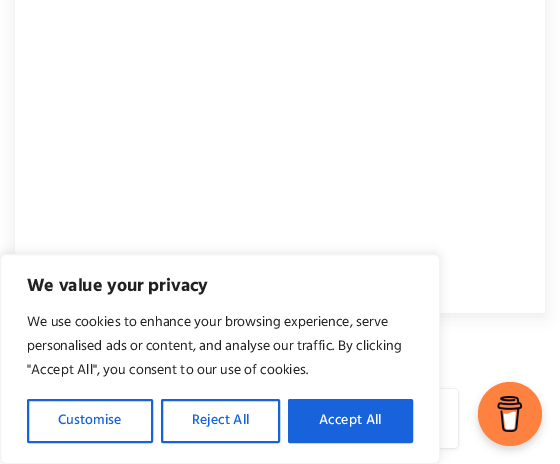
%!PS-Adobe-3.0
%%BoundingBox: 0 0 560 464
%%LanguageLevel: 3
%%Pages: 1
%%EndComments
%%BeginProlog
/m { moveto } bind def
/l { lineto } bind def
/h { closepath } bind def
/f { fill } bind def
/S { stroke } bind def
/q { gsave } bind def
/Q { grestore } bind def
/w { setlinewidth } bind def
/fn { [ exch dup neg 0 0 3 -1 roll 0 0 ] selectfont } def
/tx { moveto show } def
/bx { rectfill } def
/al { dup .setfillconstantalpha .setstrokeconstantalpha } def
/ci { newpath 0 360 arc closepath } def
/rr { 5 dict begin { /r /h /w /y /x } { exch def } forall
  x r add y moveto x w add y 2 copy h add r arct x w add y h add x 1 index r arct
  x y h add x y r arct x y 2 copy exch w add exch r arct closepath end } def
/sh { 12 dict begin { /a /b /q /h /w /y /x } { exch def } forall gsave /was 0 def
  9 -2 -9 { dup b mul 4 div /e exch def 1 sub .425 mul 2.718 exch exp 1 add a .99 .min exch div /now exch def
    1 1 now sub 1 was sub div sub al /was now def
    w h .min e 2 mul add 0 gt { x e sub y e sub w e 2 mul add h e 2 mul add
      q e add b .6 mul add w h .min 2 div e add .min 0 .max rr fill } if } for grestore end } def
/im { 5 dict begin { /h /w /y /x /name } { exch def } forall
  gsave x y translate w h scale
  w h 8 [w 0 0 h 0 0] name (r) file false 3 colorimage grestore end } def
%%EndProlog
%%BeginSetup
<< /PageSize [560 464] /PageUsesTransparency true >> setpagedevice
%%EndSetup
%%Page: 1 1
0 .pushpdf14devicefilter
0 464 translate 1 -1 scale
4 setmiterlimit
1 setgray
0 0 560 464 bx
q
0 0 m 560 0 l 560 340 l 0 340 l h 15 -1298 m 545 -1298 l 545 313 l 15 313 l h eoclip newpath
0.067 setgray
15 -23 530 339 0 7.5 0.08 sh
Q
0 setgray
243 389 215 59 4 1 0.15 sh
243 391 215 59 4 2.5 0.05 sh
1 setgray
243 389 215 59 4 rr f
0.675 0.671 0.671 setrgbcolor
0 253 440 210 6 5 0.3 sh
1 setgray
0.5 254.5 439 209 5.5 rr q f Q
0.957 setgray
S
/Hind-Bold 18 fn
0.129 setgray
(We value your privacy) 27 291 tx
/Hind-Regular 14 fn
(We use cookies to enhance your browsing experience, serve) 27 326 tx
(personalised ads or content, and analyse our traffic. By clicking) 27 350 tx
("Accept All", you consent to our use of cookies.) 27 374 tx
0.094 0.388 0.863 setrgbcolor
2 w
28 400 124 42 1 rr S
/Hind-Medium 14 fn
(Customise) 58 424 tx
162 400 117 42 1 rr S
(Reject All) 192 424 tx
289 400 123 42 1 rr q f Q
S
1 setgray
(Accept All) 319 424 tx
0 setgray
478 386 64 64 32 4 0.15 sh
1 0.506 0.247 setrgbcolor
510 414 32 ci f
(image0.raw) 497 396 26 36 im
.poppdf14devicefilter showpage
%%EOF
